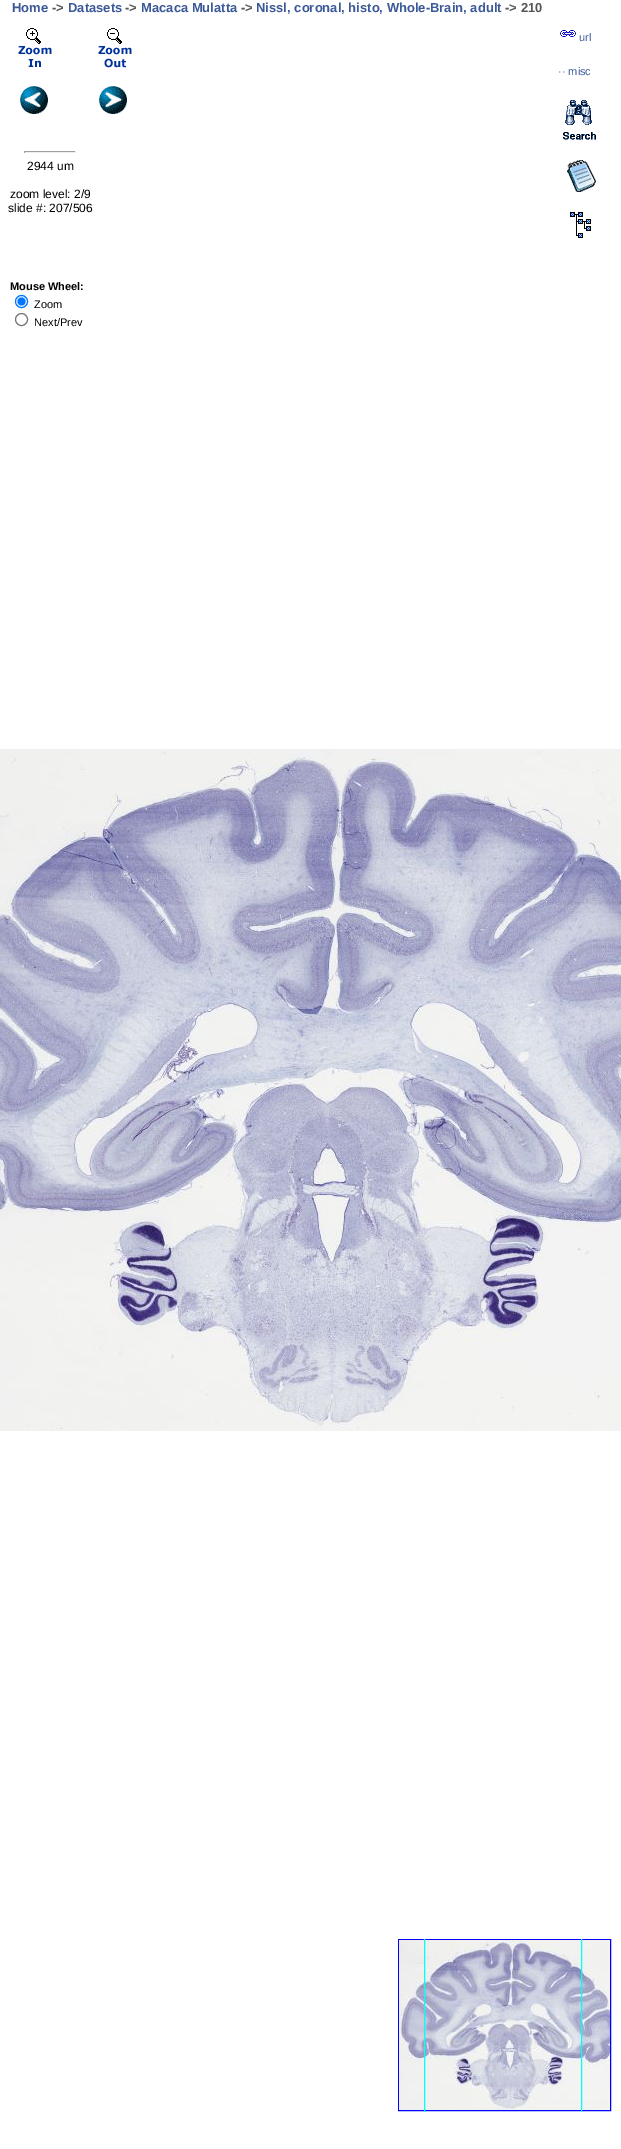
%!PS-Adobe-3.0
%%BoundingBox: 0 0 621 2149
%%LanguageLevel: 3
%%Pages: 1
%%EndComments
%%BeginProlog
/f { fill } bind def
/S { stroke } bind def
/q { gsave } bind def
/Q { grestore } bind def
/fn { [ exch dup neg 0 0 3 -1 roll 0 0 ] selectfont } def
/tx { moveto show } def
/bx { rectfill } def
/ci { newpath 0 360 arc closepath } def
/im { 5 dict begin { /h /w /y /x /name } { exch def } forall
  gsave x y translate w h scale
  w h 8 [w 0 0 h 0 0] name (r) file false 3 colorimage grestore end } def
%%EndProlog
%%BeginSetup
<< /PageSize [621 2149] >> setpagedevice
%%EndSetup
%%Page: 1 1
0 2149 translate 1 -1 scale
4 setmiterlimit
1 setgray
0 0 621 2149 bx
/LiberationSans-Bold 13 fn
0.231 0.349 0.596 setrgbcolor
(Home) 12 12 tx
0.333 setgray
(->) 52 12 tx
0.231 0.349 0.596 setrgbcolor
(Datasets) 68 12 tx
0.333 setgray
(->) 125 12 tx
0.231 0.349 0.596 setrgbcolor
(Macaca Mulatta) 141 12 tx
0.333 setgray
(->) 241 12 tx
0.231 0.349 0.596 setrgbcolor
(Nissl, coronal, histo, Whole-Brain, adult) 256 12 tx
0.333 setgray
(-> 210) 505 12 tx
(image0.raw) 18 28 34 39 im
(image1.raw) 98 28 34 40 im
(image2.raw) 20 86 28 28 im
(image3.raw) 99 86 28 28 im
(image4.raw) 0 749 143 256 im
(image5.raw) 143 749 256 256 im
(image6.raw) 399 749 222 256 im
(image7.raw) 0 1005 143 256 im
(image8.raw) 143 1005 256 256 im
(image9.raw) 399 1005 222 256 im
(image10.raw) 0 1261 143 170 im
(image11.raw) 143 1261 256 170 im
(image12.raw) 399 1261 222 170 im
0 0 1 setrgbcolor
398.5 1939.5 212 171 rectstroke
(image13.raw) 399 1940 211 170 im
q
396 1939 215 173 rectclip
0 1 1 setrgbcolor
424.5 1756.5 157 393 rectstroke
Q
(image14.raw) 560 30 16 7 im
/LiberationSans-Regular 11 fn
0.231 0.349 0.596 setrgbcolor
(url) 579 41 tx
(·· misc) 558 75 tx
(image15.raw) 563 100 33 40 im
0.624 setgray
24 151 52 1 bx
0.933 setgray
75 151 1 2 bx
24 152 52 1 bx
0.624 setgray
24 151 1 2 bx
/LiberationSans-Regular 12 fn
0 setgray
(2944 um) 27 170 tx
(zoom level: 2/9) 10 198 tx
(slide #: 207/506) 8 212 tx
(image16.raw) 567 160 29 32 im
(image17.raw) 570 212 21 26 im
/LiberationSans-Bold 11 fn
(Mouse Wheel:) 10 290 tx
0 0.459 1 setrgbcolor
21.5 301.5 6 ci S
21.5 301.5 4 ci f
/LiberationSans-Regular 11 fn
0 setgray
(Zoom) 34 308 tx
0.463 setgray
21.5 319.5 6 ci S
0 setgray
(Next/Prev) 34 326 tx
showpage
%%EOF
